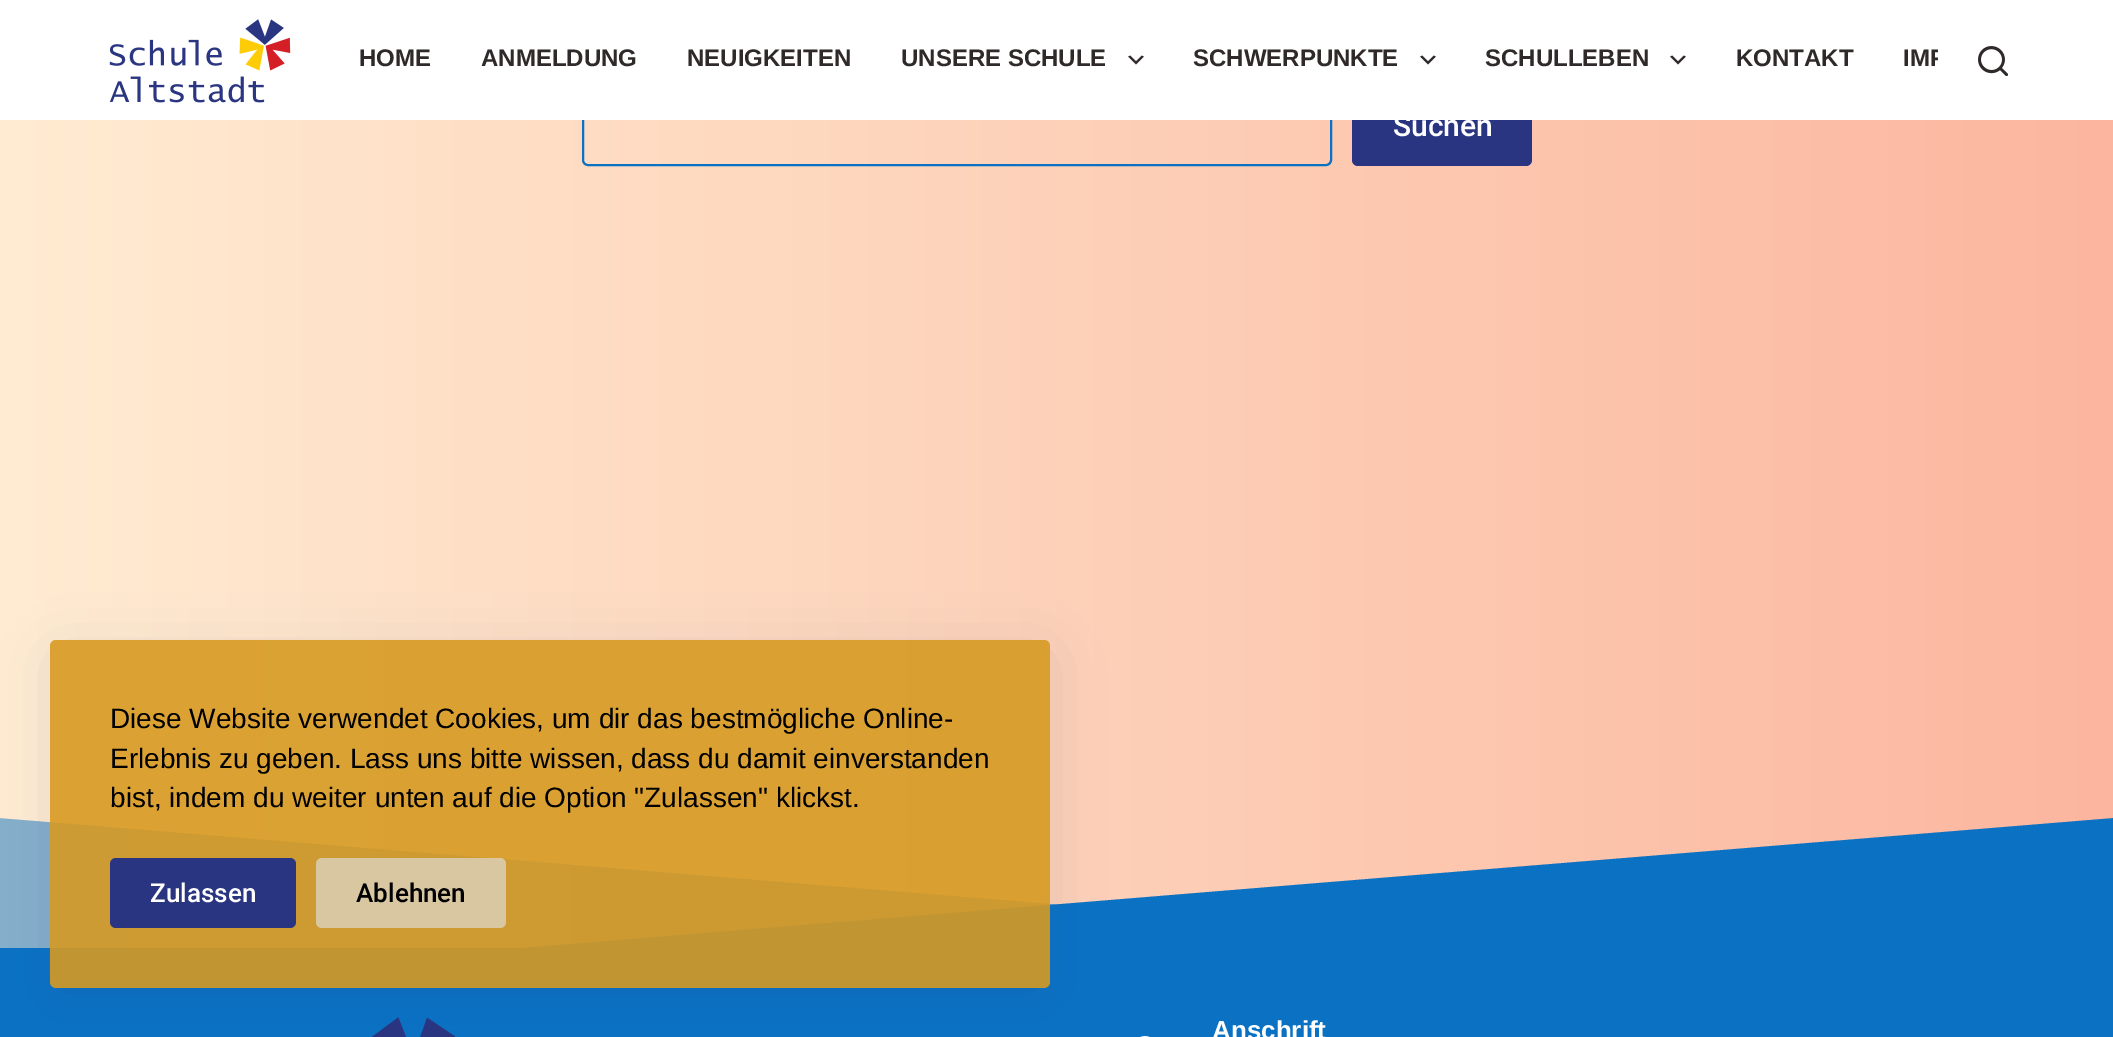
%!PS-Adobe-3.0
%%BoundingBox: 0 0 2113 1037
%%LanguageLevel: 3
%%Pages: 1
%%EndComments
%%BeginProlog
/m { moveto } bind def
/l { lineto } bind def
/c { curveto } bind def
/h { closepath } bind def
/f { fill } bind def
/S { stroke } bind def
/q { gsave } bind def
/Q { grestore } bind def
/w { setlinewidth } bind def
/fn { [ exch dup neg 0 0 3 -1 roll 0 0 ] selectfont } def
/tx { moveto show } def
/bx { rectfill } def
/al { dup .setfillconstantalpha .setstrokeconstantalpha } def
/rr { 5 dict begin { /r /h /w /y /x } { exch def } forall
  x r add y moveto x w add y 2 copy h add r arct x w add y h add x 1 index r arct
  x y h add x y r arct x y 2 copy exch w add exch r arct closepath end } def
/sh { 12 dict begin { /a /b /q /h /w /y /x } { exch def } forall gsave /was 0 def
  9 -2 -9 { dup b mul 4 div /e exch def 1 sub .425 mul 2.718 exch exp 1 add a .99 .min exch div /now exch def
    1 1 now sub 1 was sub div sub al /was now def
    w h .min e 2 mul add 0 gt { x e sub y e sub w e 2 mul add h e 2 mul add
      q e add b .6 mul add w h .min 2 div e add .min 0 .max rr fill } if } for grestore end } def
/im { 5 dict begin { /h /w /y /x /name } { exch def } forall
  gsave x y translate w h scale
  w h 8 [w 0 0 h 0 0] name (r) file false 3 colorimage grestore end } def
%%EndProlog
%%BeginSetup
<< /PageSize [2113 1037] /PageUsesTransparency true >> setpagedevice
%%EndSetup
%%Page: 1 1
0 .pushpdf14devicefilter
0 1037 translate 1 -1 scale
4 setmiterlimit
1 setgray
0 0 2113 1037 bx
q 0 120 m 2113 120 l 2113 948 l 0 948 l h clip newpath
<< /ShadingType 2 /ColorSpace /DeviceRGB /Coords [0 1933 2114 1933] /Extend [true true] /Function << /FunctionType 2 /Domain [0 1] /C0 [1 0.925 0.824] /C1 [0.988 0.714 0.624] /N 1 >> >> shfill Q
0.043 0.443 0.765 setrgbcolor
2 w
583 87 748 78 5 rr S
0.165 0.208 0.506 setrgbcolor
1352 86 180 80 6 rr f
1 setgray
582 86 950 34 bx
(image0.raw) 109 19 182 84 im
/LiberationSans-Bold 24 fn
0.184 0.161 0.161 setrgbcolor
(HOME) 359 66 tx
(ANMELDUNG) 481 66 tx
(NEUIGKEITEN) 687 66 tx
(UNSERE SCHULE) 901 66 tx
(image1.raw) 1128 55 16 10 im
(SCHWERPUNKTE) 1193 66 tx
(image1.raw) 1420 55 16 10 im
(SCHULLEBEN) 1485 66 tx
(image1.raw) 1670 55 16 10 im
(KONTAKT) 1736 66 tx
q
334 0 1604 120 rectclip
(IMP) 1903 66 tx
Q
(image2.raw) 1978 46 30 30 im
/Roboto-Medium 30 fn
1 setgray
(Suchen) 1393 136 tx
q
0 816 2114 132 rectclip
0.5 al
0.043 0.443 0.765 setrgbcolor
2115 991 m 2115 1002 l -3 1002 l -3 818 l h f
1 al
-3 991 m -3 1002 l 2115 1002 l 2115 818 l h f
Q
0.043 0.443 0.765 setrgbcolor
0 948 2113 89 bx
(image3.raw) 371 1017 85 20 im
(image4.raw) 1140 1036 10 1 im
/LiberationSans-Bold 26 fn
1 setgray
(Anschrift) 1212 1039 tx
q
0 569 m 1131 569 l 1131 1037 l 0 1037 l h 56 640 m 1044 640 l 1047.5 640 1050 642.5 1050 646 c 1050 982 l 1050 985.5 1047.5 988 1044 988 c 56 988 l 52.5 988 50 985.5 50 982 c 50 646 l 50 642.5 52.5 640 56 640 c h eoclip newpath
0.133 0.22 0.396 setrgbcolor
60 660 980 328 0 30 0.15 sh
Q
0.89 al
0.839 0.6 0.125 setrgbcolor
50 640 1000 348 6 rr f
/LiberationSans-Regular 28 fn
1 al
0 setgray
(Diese Website verwendet Cookies, um dir das bestmögliche Online-) 110 728 tx
(Erlebnis zu geben. Lass uns bitte wissen, dass du damit einverstanden) 110 768 tx
(bist, indem du weiter unten auf die Option "Zulassen" klickst.) 110 807 tx
0.165 0.208 0.506 setrgbcolor
110 858 186 70 6 rr f
/Roboto-Medium 26 fn
1 setgray
(Zulassen) 150 902 tx
0.6 al
0.878 0.898 0.922 setrgbcolor
316 858 190 70 6 rr f
1 al
0 setgray
(Ablehnen) 356 902 tx
.poppdf14devicefilter showpage
%%EOF
